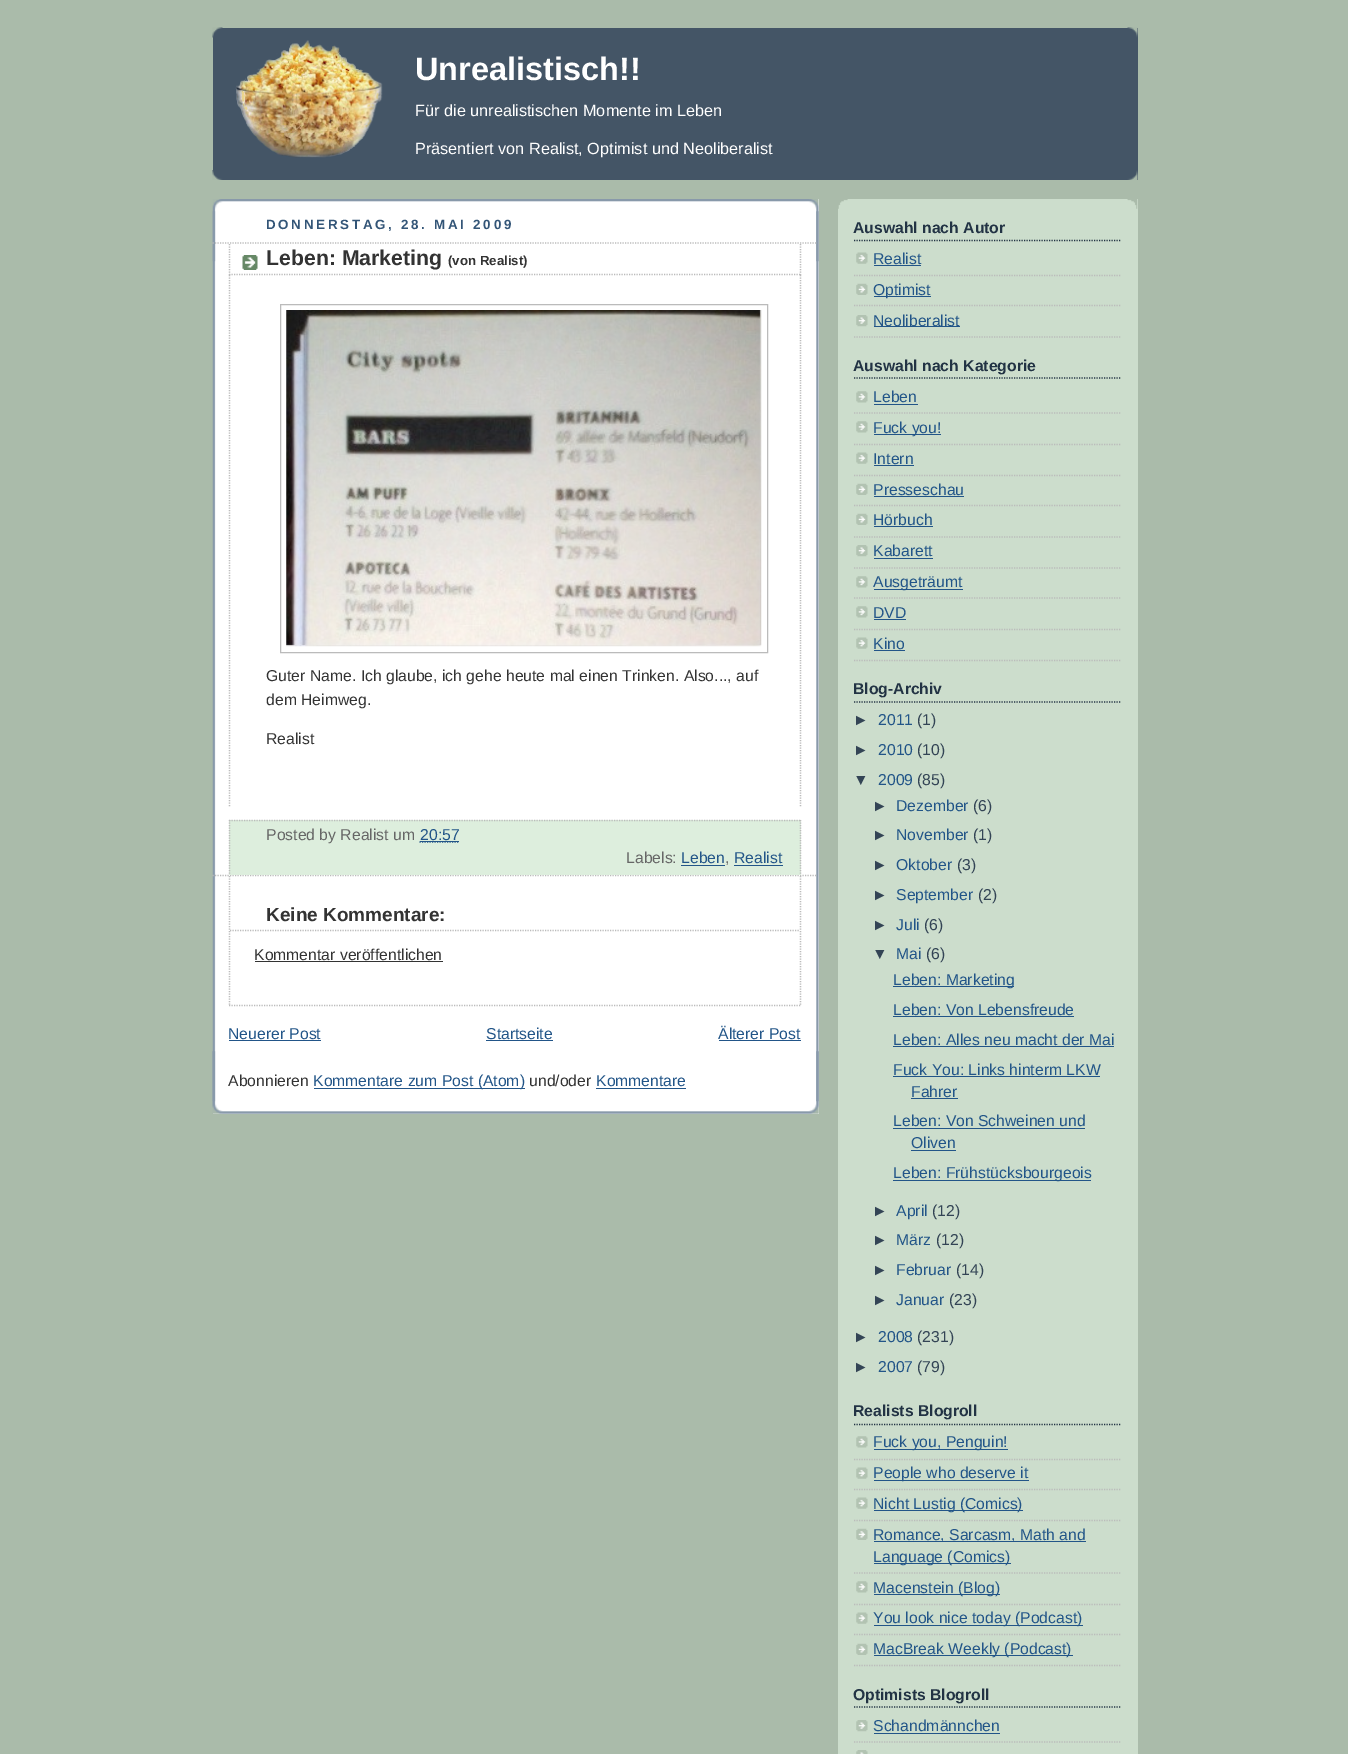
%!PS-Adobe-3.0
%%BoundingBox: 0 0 1348 1754
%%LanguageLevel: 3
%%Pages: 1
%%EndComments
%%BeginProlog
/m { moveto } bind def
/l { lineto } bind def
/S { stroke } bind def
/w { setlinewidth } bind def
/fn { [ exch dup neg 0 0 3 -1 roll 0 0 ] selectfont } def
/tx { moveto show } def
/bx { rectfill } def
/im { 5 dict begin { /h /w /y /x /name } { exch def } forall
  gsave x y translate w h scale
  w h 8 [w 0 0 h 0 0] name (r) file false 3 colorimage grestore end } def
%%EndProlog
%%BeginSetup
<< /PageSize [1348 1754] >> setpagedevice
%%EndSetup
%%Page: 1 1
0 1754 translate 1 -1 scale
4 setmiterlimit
0.667 0.733 0.667 setrgbcolor
0 0 1348 1754 bx
0.267 0.333 0.4 setrgbcolor
213 28 925 152 bx
(image0.raw) 212 27 926 11 im
(image1.raw) 212 170 926 10 im
(image2.raw) 235 40 148 118 im
/LiberationSans-Bold 32.5 fn
1 setgray
(Unrealistisch!!) 415 80 tx
/LiberationSans-Regular 16.25 fn
(Für die unrealistischen Momente im Leben) 415 116 tx
(Präsentiert von Realist, Optimist und Neoliberalist) 415 154 tx
213 199 606 915 bx
(image3.raw) 212 1051 607 63 im
(image4.raw) 212 199 607 63 im
(image5.raw) 212 211 607 891 im
/LiberationSans-Bold 13.4 fn
0.2 0.333 0.467 setrgbcolor
266 229 m 2.7 0 (DONNERSTAG, 28. MAI 2009) ashow
0.733 setgray
1.2 w
[1.25 1.25] 0 setdash
212.5 243 m 817.5 243 l S
212.5 875.5 m 817.5 875.5 l S
(image6.raw) 242 255 16 15 im
800.5 244 m 800.5 275 l S
229 274.5 m 801 274.5 l S
229.5 244 m 229.5 275 l S
/LiberationSans-Bold 21.25 fn
0.2 setgray
(Leben: Marketing) 266 265 tx
/LiberationSans-Bold 13.25 fn
(\(von Realist\)) 448 265 tx
0.733 setgray
800.5 275 m 800.5 807.5 l S
229.5 275 m 229.5 807.5 l S
1 w
[] 0 setdash
280.5 304.5 487 348 rectstroke
(image7.raw) 286 310 476 337 im
/LiberationSans-Regular 15.75 fn
0.2 setgray
(Guter Name. Ich glaube, ich gehe heute mal einen Trinken. Also..., auf) 266 681 tx
(dem Heimweg.) 266 705 tx
(Realist) 266 744 tx
0.867 0.933 0.867 setrgbcolor
229 820 572 55 bx
0.733 setgray
1.2 w
[1.25 1.25] 0 setdash
229 820.5 m 801 820.5 l S
800.5 820 m 800.5 875 l S
229.5 820 m 229.5 875 l S
0.4 setgray
(Posted by Realist) 266 840 tx
(um) 393 840 tx
0.133 0.333 0.533 setrgbcolor
(20:57) 420 840 tx
419.5 842 m 459 842 l S
420 841 39 1 bx
0.4 setgray
(Labels:) 626 863 tx
0.133 0.333 0.533 setrgbcolor
(Leben) 681 863 tx
0.4 setgray
(,) 725 863 tx
0.133 0.333 0.533 setrgbcolor
681 865 44 1 bx
734 865 49 1 bx
(Realist) 734 863 tx
0.733 setgray
800.5 876 m 800.5 1006 l S
229 1005.5 m 801 1005.5 l S
229.5 876 m 229.5 1006 l S
230 930.5 m 800 930.5 l S
/LiberationSans-Bold 19 fn
0.2 setgray
(Keine Kommentare:) 266 921 tx
/LiberationSans-Regular 15.75 fn
(Kommentar veröffentlichen) 254 960 tx
255 961 188 1 bx
0.133 0.333 0.533 setrgbcolor
(Neuerer Post) 228 1039 tx
229 1040 92 1 bx
(Startseite) 486 1039 tx
486 1040 67 1 bx
(Älterer Post) 718 1039 tx
719 1040 82 1 bx
0.2 setgray
(Abonnieren) 228 1086 tx
0.133 0.333 0.533 setrgbcolor
314 1088 211 1 bx
(Kommentare zum Post \(Atom\)) 313 1086 tx
0.2 setgray
(und/oder) 529 1086 tx
0.133 0.333 0.533 setrgbcolor
(Kommentare) 596 1086 tx
596 1088 90 1 bx
0.8 0.867 0.8 setrgbcolor
838 199 300 1555 bx
(image8.raw) 838 199 300 10 im
0.133 0.2 0.267 setrgbcolor
854 240.5 m 1121 240.5 l S
/LiberationSans-Bold 15.75 fn
(Auswahl nach Autor) 853 233 tx
(image9.raw) 856 252 12 12 im
0.733 setgray
854 275.5 m 1121 275.5 l S
/LiberationSans-Regular 15.75 fn
0.133 0.333 0.533 setrgbcolor
(Realist) 873 264 tx
874 265 47 1 bx
(image10.raw) 856 283 12 12 im
0.733 setgray
854 305.5 m 1121 305.5 l S
0.133 0.333 0.533 setrgbcolor
874 296 57 1 bx
(Optimist) 873 295 tx
(image11.raw) 856 315 12 12 im
0.733 setgray
854 337 m 1121 337 l S
0.133 0.333 0.533 setrgbcolor
874 326 86 1 bx
(Neoliberalist) 873 326 tx
0.133 0.2 0.267 setrgbcolor
854 378 m 1121 378 l S
/LiberationSans-Bold 15.75 fn
(Auswahl nach Kategorie) 853 371 tx
(image12.raw) 856 391 12 12 im
0.733 setgray
854 413 m 1121 413 l S
/LiberationSans-Regular 15.75 fn
0.133 0.333 0.533 setrgbcolor
(Leben) 873 402 tx
874 404 44 1 bx
(image12.raw) 856 421 12 12 im
0.733 setgray
854 444.5 m 1121 444.5 l S
0.133 0.333 0.533 setrgbcolor
874 434 67 1 bx
(Fuck you!) 873 433 tx
(image9.raw) 856 452 12 12 im
0.733 setgray
854 475.5 m 1121 475.5 l S
0.133 0.333 0.533 setrgbcolor
(Intern) 873 464 tx
874 465 40 1 bx
(image10.raw) 856 483 12 12 im
0.733 setgray
854 505.5 m 1121 505.5 l S
0.133 0.333 0.533 setrgbcolor
(Presseschau) 873 495 tx
874 496 90 1 bx
(image10.raw) 856 513 12 12 im
0.733 setgray
854 537 m 1121 537 l S
0.133 0.333 0.533 setrgbcolor
(Hörbuch) 873 525 tx
874 526 59 1 bx
(image11.raw) 856 545 12 12 im
0.733 setgray
854 568 m 1121 568 l S
0.133 0.333 0.533 setrgbcolor
(Kabarett) 873 556 tx
874 558 59 1 bx
(image12.raw) 856 576 12 12 im
0.733 setgray
854 598 m 1121 598 l S
0.133 0.333 0.533 setrgbcolor
874 589 89 1 bx
(Ausgeträumt) 873 587 tx
(image12.raw) 856 606 12 12 im
0.733 setgray
854 629.5 m 1121 629.5 l S
0.133 0.333 0.533 setrgbcolor
(DVD) 873 618 tx
874 619 32 1 bx
(image9.raw) 856 637 12 12 im
0.733 setgray
854 660.5 m 1121 660.5 l S
0.133 0.333 0.533 setrgbcolor
(Kino) 873 649 tx
874 650 31 1 bx
0.133 0.2 0.267 setrgbcolor
854 702 m 1121 702 l S
/LiberationSans-Bold 15.75 fn
(Blog-Archiv) 853 694 tx
/LiberationSans-Regular 15.75 fn
0.2 0.267 0.333 setrgbcolor
(►) 853 725 tx
0.133 0.333 0.533 setrgbcolor
(2011) 878 725 tx
0.2 0.267 0.333 setrgbcolor
(\(1\)) 917 725 tx
(►) 853 755 tx
0.133 0.333 0.533 setrgbcolor
(2010) 878 755 tx
0.2 0.267 0.333 setrgbcolor
(\(10\)) 917 755 tx
(▼) 853 785 tx
0.133 0.333 0.533 setrgbcolor
(2009) 878 785 tx
0.2 0.267 0.333 setrgbcolor
(\(85\)) 917 785 tx
(►) 872 811 tx
0.133 0.333 0.533 setrgbcolor
(Dezember) 896 811 tx
0.2 0.267 0.333 setrgbcolor
(\(6\)) 973 811 tx
(►) 872 840 tx
0.133 0.333 0.533 setrgbcolor
(November) 896 840 tx
0.2 0.267 0.333 setrgbcolor
(\(1\)) 973 840 tx
(►) 872 870 tx
0.133 0.333 0.533 setrgbcolor
(Oktober) 896 870 tx
0.2 0.267 0.333 setrgbcolor
(\(3\)) 957 870 tx
(►) 872 900 tx
0.133 0.333 0.533 setrgbcolor
(September) 896 900 tx
0.2 0.267 0.333 setrgbcolor
(\(2\)) 978 900 tx
(►) 872 930 tx
0.133 0.333 0.533 setrgbcolor
(Juli) 896 930 tx
0.2 0.267 0.333 setrgbcolor
(\(6\)) 924 930 tx
(▼) 872 959 tx
0.133 0.333 0.533 setrgbcolor
(Mai) 896 959 tx
0.2 0.267 0.333 setrgbcolor
(\(6\)) 926 959 tx
0.133 0.333 0.533 setrgbcolor
893 986 121 1 bx
(Leben: Marketing) 893 985 tx
(Leben: Von Lebensfreude) 893 1015 tx
893 1016 181 1 bx
(Leben: Alles neu macht der Mai) 893 1045 tx
893 1046 221 1 bx
(Fuck You: Links hinterm LKW) 893 1075 tx
893 1076 207 1 bx
(Fahrer) 911 1097 tx
911 1098 47 1 bx
(Leben: Von Schweinen und) 893 1126 tx
893 1128 192 1 bx
(Oliven) 911 1148 tx
911 1150 45 1 bx
893 1180 198 1 bx
(Leben: Frühstücksbourgeois) 893 1178 tx
0.2 0.267 0.333 setrgbcolor
(►) 872 1216 tx
0.133 0.333 0.533 setrgbcolor
(April) 896 1216 tx
0.2 0.267 0.333 setrgbcolor
(\(12\)) 932 1216 tx
(►) 872 1245 tx
0.133 0.333 0.533 setrgbcolor
(März) 896 1245 tx
0.2 0.267 0.333 setrgbcolor
(\(12\)) 936 1245 tx
(►) 872 1275 tx
0.133 0.333 0.533 setrgbcolor
(Februar) 896 1275 tx
0.2 0.267 0.333 setrgbcolor
(\(14\)) 956 1275 tx
(►) 872 1305 tx
0.133 0.333 0.533 setrgbcolor
(Januar) 896 1305 tx
0.2 0.267 0.333 setrgbcolor
(\(23\)) 949 1305 tx
(►) 853 1342 tx
0.133 0.333 0.533 setrgbcolor
(2008) 878 1342 tx
0.2 0.267 0.333 setrgbcolor
(\(231\)) 917 1342 tx
(►) 853 1372 tx
0.133 0.333 0.533 setrgbcolor
(2007) 878 1372 tx
0.2 0.267 0.333 setrgbcolor
(\(79\)) 917 1372 tx
0.133 0.2 0.267 setrgbcolor
854 1424.5 m 1121 1424.5 l S
/LiberationSans-Bold 15.75 fn
(Realists Blogroll) 853 1416 tx
(image12.raw) 856 1436 12 12 im
0.733 setgray
854 1459.5 m 1121 1459.5 l S
0.133 0.333 0.533 setrgbcolor
874 1449 134 1 bx
/LiberationSans-Regular 15.75 fn
(Fuck you, Penguin!) 873 1447 tx
(image9.raw) 856 1467 12 12 im
0.733 setgray
854 1489.5 m 1121 1489.5 l S
0.133 0.333 0.533 setrgbcolor
874 1480 155 1 bx
(People who deserve it) 873 1478 tx
(image9.raw) 856 1497 12 12 im
0.733 setgray
854 1520.5 m 1121 1520.5 l S
0.133 0.333 0.533 setrgbcolor
874 1510 149 1 bx
(Nicht Lustig \(Comics\)) 873 1509 tx
(image10.raw) 856 1528 12 12 im
0.733 setgray
854 1573 m 1121 1573 l S
0.133 0.333 0.533 setrgbcolor
874 1541 212 1 bx
(Romance, Sarcasm, Math and) 873 1540 tx
874 1563 137 1 bx
(Language \(Comics\)) 873 1562 tx
(image12.raw) 856 1581 12 12 im
0.733 setgray
854 1604.5 m 1121 1604.5 l S
0.133 0.333 0.533 setrgbcolor
874 1594 126 1 bx
(Macenstein \(Blog\)) 873 1593 tx
(image9.raw) 856 1612 12 12 im
0.733 setgray
854 1634.5 m 1121 1634.5 l S
0.133 0.333 0.533 setrgbcolor
874 1625 209 1 bx
(You look nice today \(Podcast\)) 873 1623 tx
(image10.raw) 856 1643 12 12 im
0.733 setgray
854 1665.5 m 1121 1665.5 l S
0.133 0.333 0.533 setrgbcolor
874 1655 199 1 bx
(MacBreak Weekly \(Podcast\)) 873 1654 tx
0.133 0.2 0.267 setrgbcolor
854 1707 m 1121 1707 l S
/LiberationSans-Bold 15.75 fn
(Optimists Blogroll) 853 1700 tx
(image11.raw) 856 1720 12 12 im
0.733 setgray
854 1742 m 1121 1742 l S
/LiberationSans-Regular 15.75 fn
0.133 0.333 0.533 setrgbcolor
(Schandmännchen) 873 1731 tx
874 1733 126 1 bx
(image13.raw) 856 1750 12 4 im
showpage
%%EOF
